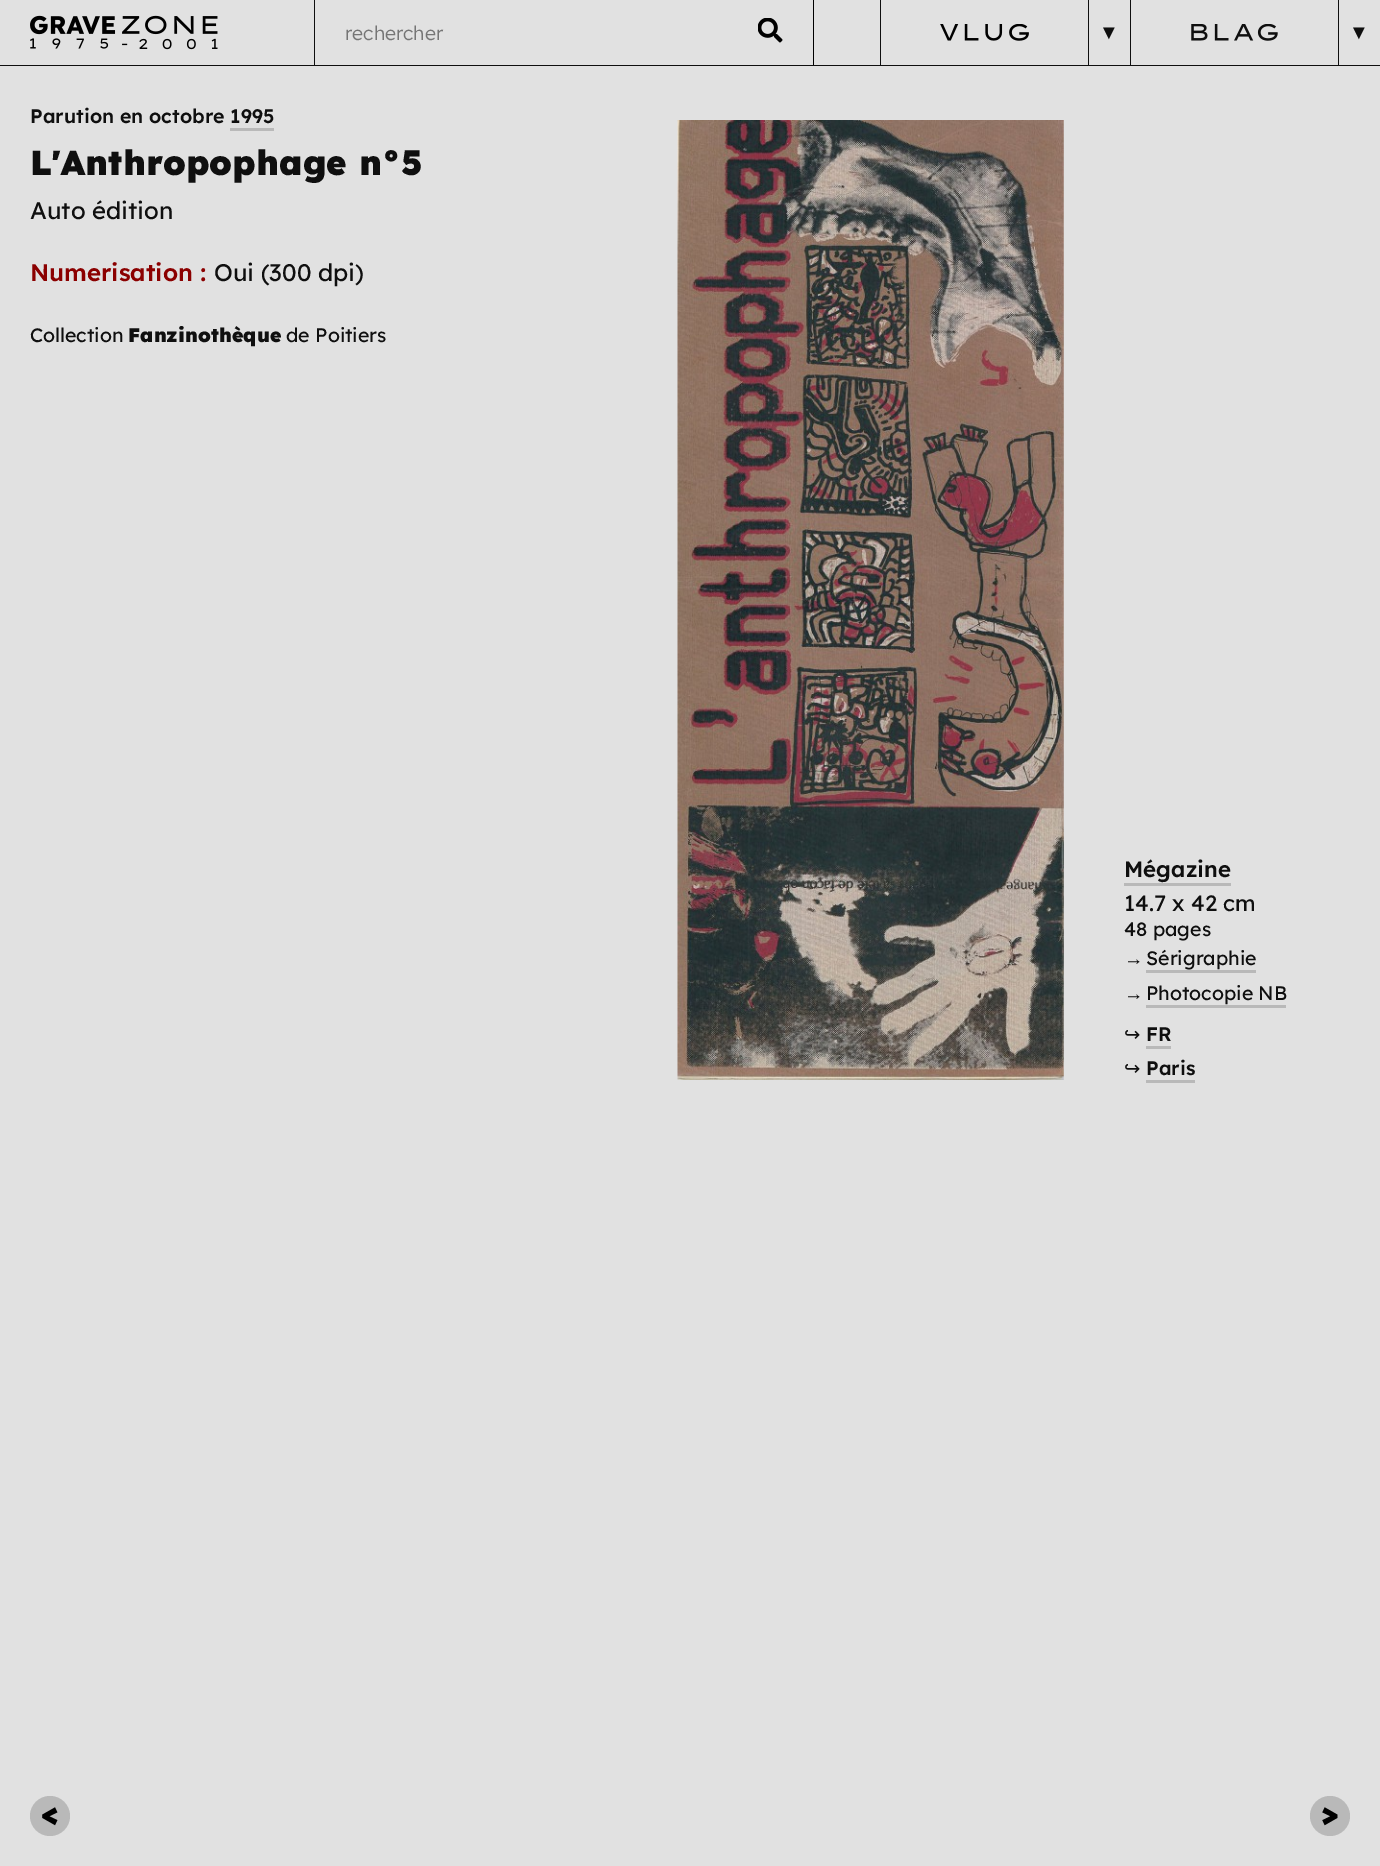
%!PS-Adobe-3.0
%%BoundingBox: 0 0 1380 1866
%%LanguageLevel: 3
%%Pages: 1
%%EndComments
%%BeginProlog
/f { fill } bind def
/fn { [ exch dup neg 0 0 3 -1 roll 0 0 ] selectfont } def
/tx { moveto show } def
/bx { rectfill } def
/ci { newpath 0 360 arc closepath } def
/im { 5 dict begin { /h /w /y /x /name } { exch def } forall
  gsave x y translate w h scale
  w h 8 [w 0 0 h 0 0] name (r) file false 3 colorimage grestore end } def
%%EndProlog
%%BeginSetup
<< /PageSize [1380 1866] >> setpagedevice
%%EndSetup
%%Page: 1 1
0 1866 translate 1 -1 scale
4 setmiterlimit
0.882 setgray
0 0 1380 1866 bx
0.059 setgray
0 65 1380 1 bx
(image0.raw) 30 15 188 35 im
314 0 1 65 bx
/Lexend-Regular 19.5 fn
0.459 setgray
(rechercher) 345 40 tx
0 setgray
813 0 1 65 bx
(image1.raw) 758 18 25 25 im
0.059 setgray
1088 0 1 65 bx
880 0 1 65 bx
(image2.raw) 940 24 89 17 im
/LiberationSerif-Regular 20 fn
(▼) 1099 39 tx
1338 0 1 65 bx
1130 0 1 65 bx
(image3.raw) 1191 24 87 17 im
(▼) 1349 39 tx
/Lexend-SemiBold 19.5 fn
(Parution en octobre 1995) 30 123 tx
0.725 setgray
230 128 44 3 bx
/Lexend-ExtraBold 34.75 fn
0.059 setgray
(L'Anthropophage n°5) 30 175 tx
/Lexend-Medium 24 fn
(Auto édition) 30 219 tx
/Lexend-SemiBold 24 fn
0.545 0 0 setrgbcolor
(Numerisation :) 30 281 tx
/Lexend-Medium 24 fn
0.059 setgray
(Oui \(300 dpi\)) 214 281 tx
/Lexend-Medium 19.5 fn
(Collection) 30 342 tx
/Lexend-ExtraBold 19.5 fn
(Fanzinothèque) 128 342 tx
/Lexend-Medium 19.5 fn
(de Poitiers) 286 342 tx
(image4.raw) 677 120 387 960 im
/Lexend-SemiBold 22.25 fn
(Mégazine) 1124 877 tx
0.725 setgray
1124 883 107 3 bx
/Lexend-Medium 22.25 fn
0.059 setgray
(14.7 x 42 cm) 1124 911 tx
/Lexend-Medium 19.5 fn
(48 pages) 1124 936 tx
/LiberationSerif-Regular 19.5 fn
(→) 1124 965 tx
/Lexend-Medium 19.5 fn
(Sérigraphie) 1146 965 tx
0.725 setgray
1146 970 110 3 bx
/LiberationSerif-Regular 19.5 fn
0.059 setgray
(→) 1124 1000 tx
/Lexend-Medium 19.5 fn
(Photocopie NB) 1146 1000 tx
0.725 setgray
1146 1005 140 3 bx
/DejaVuSans-Regular 19.5 fn
0.059 setgray
(↪) 1124 1041 tx
/Lexend-SemiBold 19.5 fn
(FR) 1146 1041 tx
0.725 setgray
1146 1046 25 3 bx
/DejaVuSans-Regular 19.5 fn
0.059 setgray
(↪) 1124 1075 tx
/Lexend-SemiBold 19.5 fn
(Paris) 1146 1075 tx
0.725 setgray
1146 1080 49 3 bx
50 1816 20 ci f
(image5.raw) 42 1807 16 19 im
1330 1816 20 ci f
(image6.raw) 1322 1807 16 19 im
showpage
%%EOF
